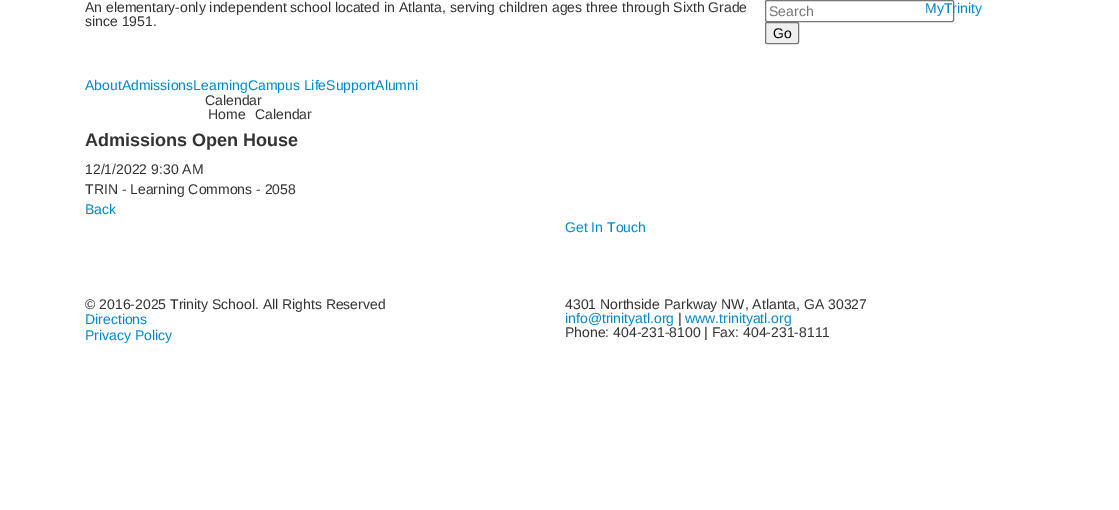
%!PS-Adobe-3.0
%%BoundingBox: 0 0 1119 510
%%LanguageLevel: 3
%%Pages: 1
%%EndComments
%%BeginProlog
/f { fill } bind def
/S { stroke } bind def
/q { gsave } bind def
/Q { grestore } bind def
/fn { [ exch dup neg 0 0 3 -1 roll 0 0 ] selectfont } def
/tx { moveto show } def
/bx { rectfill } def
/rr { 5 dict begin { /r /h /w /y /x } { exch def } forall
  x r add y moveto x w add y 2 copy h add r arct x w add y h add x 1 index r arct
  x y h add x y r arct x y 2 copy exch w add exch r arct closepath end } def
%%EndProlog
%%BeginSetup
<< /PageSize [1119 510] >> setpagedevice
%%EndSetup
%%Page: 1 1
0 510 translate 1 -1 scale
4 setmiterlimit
1 setgray
0 0 1119 510 bx
/LiberationSans-Regular 14 fn
0.2 setgray
(An elementary-only independent school located in Atlanta, serving children ages three through Sixth Grade) 85 12 tx
(since 1951.) 85 26 tx
0.463 setgray
765.5 0.5 188 21 1.5 rr S
0.459 setgray
(Search) 769 16 tx
0.937 setgray
765.5 22.5 33 21 1.5 rr q f Q
0.463 setgray
S
0 setgray
(Go) 773 38 tx
0 0.533 0.8 setrgbcolor
(MyTrinity) 925 13 tx
(AboutAdmissionsLearningCampus LifeSupportAlumni) 85 90 tx
0.2 setgray
(Calendar) 205 105 tx
(Home) 208 119 tx
(Calendar) 255 119 tx
/LiberationSans-Bold 18 fn
(Admissions Open House) 85 146 tx
/LiberationSans-Regular 14 fn
(12/1/2022 9:30 AM) 85 174 tx
(TRIN - Learning Commons - 2058) 85 194 tx
0 0.533 0.8 setrgbcolor
(Back) 85 214 tx
(Get In Touch) 565 232 tx
0.2 setgray
(© 2016-2025 Trinity School. All Rights Reserved) 85 309 tx
0 0.533 0.8 setrgbcolor
(Directions) 85 324 tx
(Privacy Policy) 85 340 tx
0.2 setgray
(4301 Northside Parkway NW, Atlanta, GA 30327) 565 309 tx
0 0.533 0.8 setrgbcolor
(info@trinityatl.org) 565 323 tx
0.2 setgray
(|) 678 323 tx
0 0.533 0.8 setrgbcolor
(www.trinityatl.org) 685 323 tx
0.2 setgray
(Phone: 404-231-8100 | Fax: 404-231-8111) 565 337 tx
showpage
%%EOF
